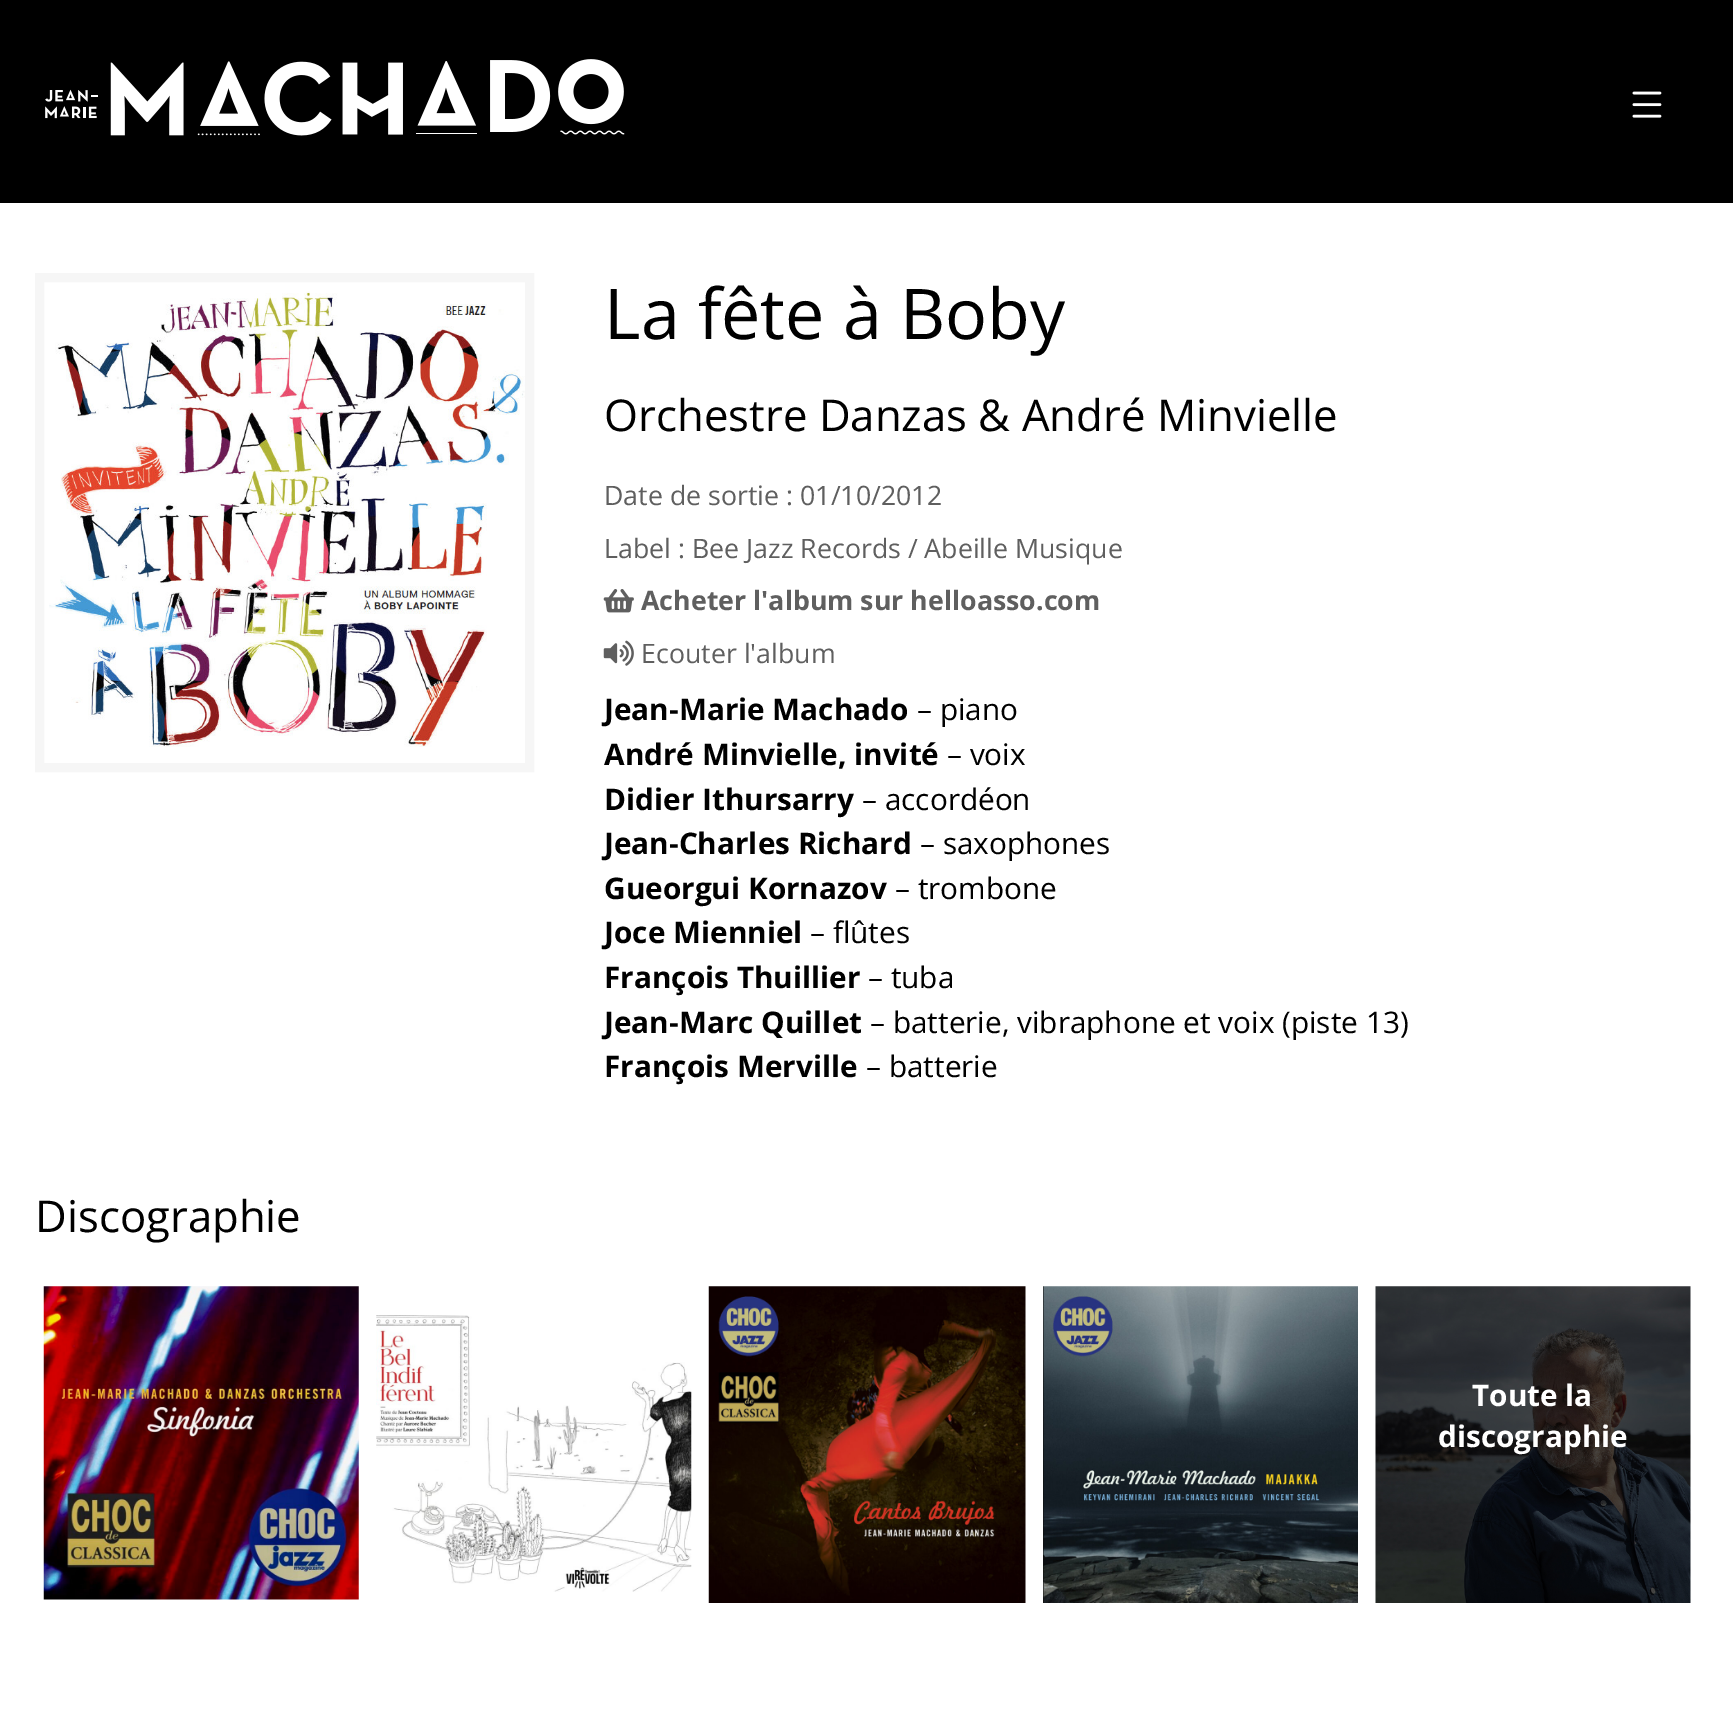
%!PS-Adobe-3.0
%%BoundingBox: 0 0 1733 1727
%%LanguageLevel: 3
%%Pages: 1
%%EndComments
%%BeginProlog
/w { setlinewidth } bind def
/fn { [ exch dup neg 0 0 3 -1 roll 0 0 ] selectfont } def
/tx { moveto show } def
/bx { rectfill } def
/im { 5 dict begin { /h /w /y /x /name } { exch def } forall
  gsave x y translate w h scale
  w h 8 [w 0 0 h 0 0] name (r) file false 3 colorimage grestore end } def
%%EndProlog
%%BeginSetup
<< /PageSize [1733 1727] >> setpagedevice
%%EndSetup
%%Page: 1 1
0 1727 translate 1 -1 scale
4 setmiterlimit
1 setgray
0 0 1733 1727 bx
0 setgray
0 0 1733 203 bx
(image0.raw) 45 59 580 77 im
(image1.raw) 1632 91 30 27 im
0.965 setgray
9 w
39.5 277.5 490 490 rectstroke
(image2.raw) 49 291 476 456 im
/OpenSans-Regular 70 fn
0 setgray
(La fête à Boby) 604 339 tx
/OpenSans-Regular 43.75 fn
(Orchestre Danzas & André Minvielle) 604 431 tx
/OpenSans-Regular 26.75 fn
0.373 setgray
(Date de sortie : 01/10/2012) 604 505 tx
(Label : Bee Jazz Records / Abeille Musique) 604 558 tx
(image3.raw) 603 589 31 24 im
/OpenSans-Bold 26.75 fn
(Acheter l'album sur helloasso.com) 641 610 tx
(image4.raw) 603 640 31 26 im
/OpenSans-Regular 26.75 fn
(Ecouter l'album) 641 663 tx
/OpenSans-Bold 29.75 fn
0 setgray
(Jean-Marie Machado) 604 720 tx
/OpenSans-Regular 29.75 fn
(– piano) 917 720 tx
/OpenSans-Bold 29.75 fn
(André Minvielle, invité) 604 765 tx
/OpenSans-Regular 29.75 fn
(– voix) 947 765 tx
/OpenSans-Bold 29.75 fn
(Didier Ithursarry) 604 810 tx
/OpenSans-Regular 29.75 fn
(– accordéon) 862 810 tx
/OpenSans-Bold 29.75 fn
(Jean-Charles Richard) 604 854 tx
/OpenSans-Regular 29.75 fn
(– saxophones) 920 854 tx
/OpenSans-Bold 29.75 fn
(Gueorgui Kornazov) 604 899 tx
/OpenSans-Regular 29.75 fn
(– trombone) 895 899 tx
/OpenSans-Bold 29.75 fn
(Joce Mienniel) 604 943 tx
/OpenSans-Regular 29.75 fn
(– flûtes) 810 943 tx
/OpenSans-Bold 29.75 fn
(François Thuillier) 604 988 tx
/OpenSans-Regular 29.75 fn
(– tuba) 868 988 tx
/OpenSans-Bold 29.75 fn
(Jean-Marc Quillet) 604 1033 tx
/OpenSans-Regular 29.75 fn
(– batterie, vibraphone et voix \(piste 13\)) 870 1033 tx
/OpenSans-Bold 29.75 fn
(François Merville) 604 1077 tx
/OpenSans-Regular 29.75 fn
(– batterie) 866 1077 tx
/OpenSans-Regular 43.75 fn
(Discographie) 35 1232 tx
(image5.raw) 43 1286 316 314 im
(image6.raw) 376 1315 316 277 im
(image7.raw) 708 1286 318 317 im
(image8.raw) 1043 1286 315 317 im
(image9.raw) 1375 1286 316 317 im
/OpenSans-Bold 29.75 fn
1 setgray
(Toute la) 1472 1406 tx
(discographie) 1438 1447 tx
showpage
%%EOF
